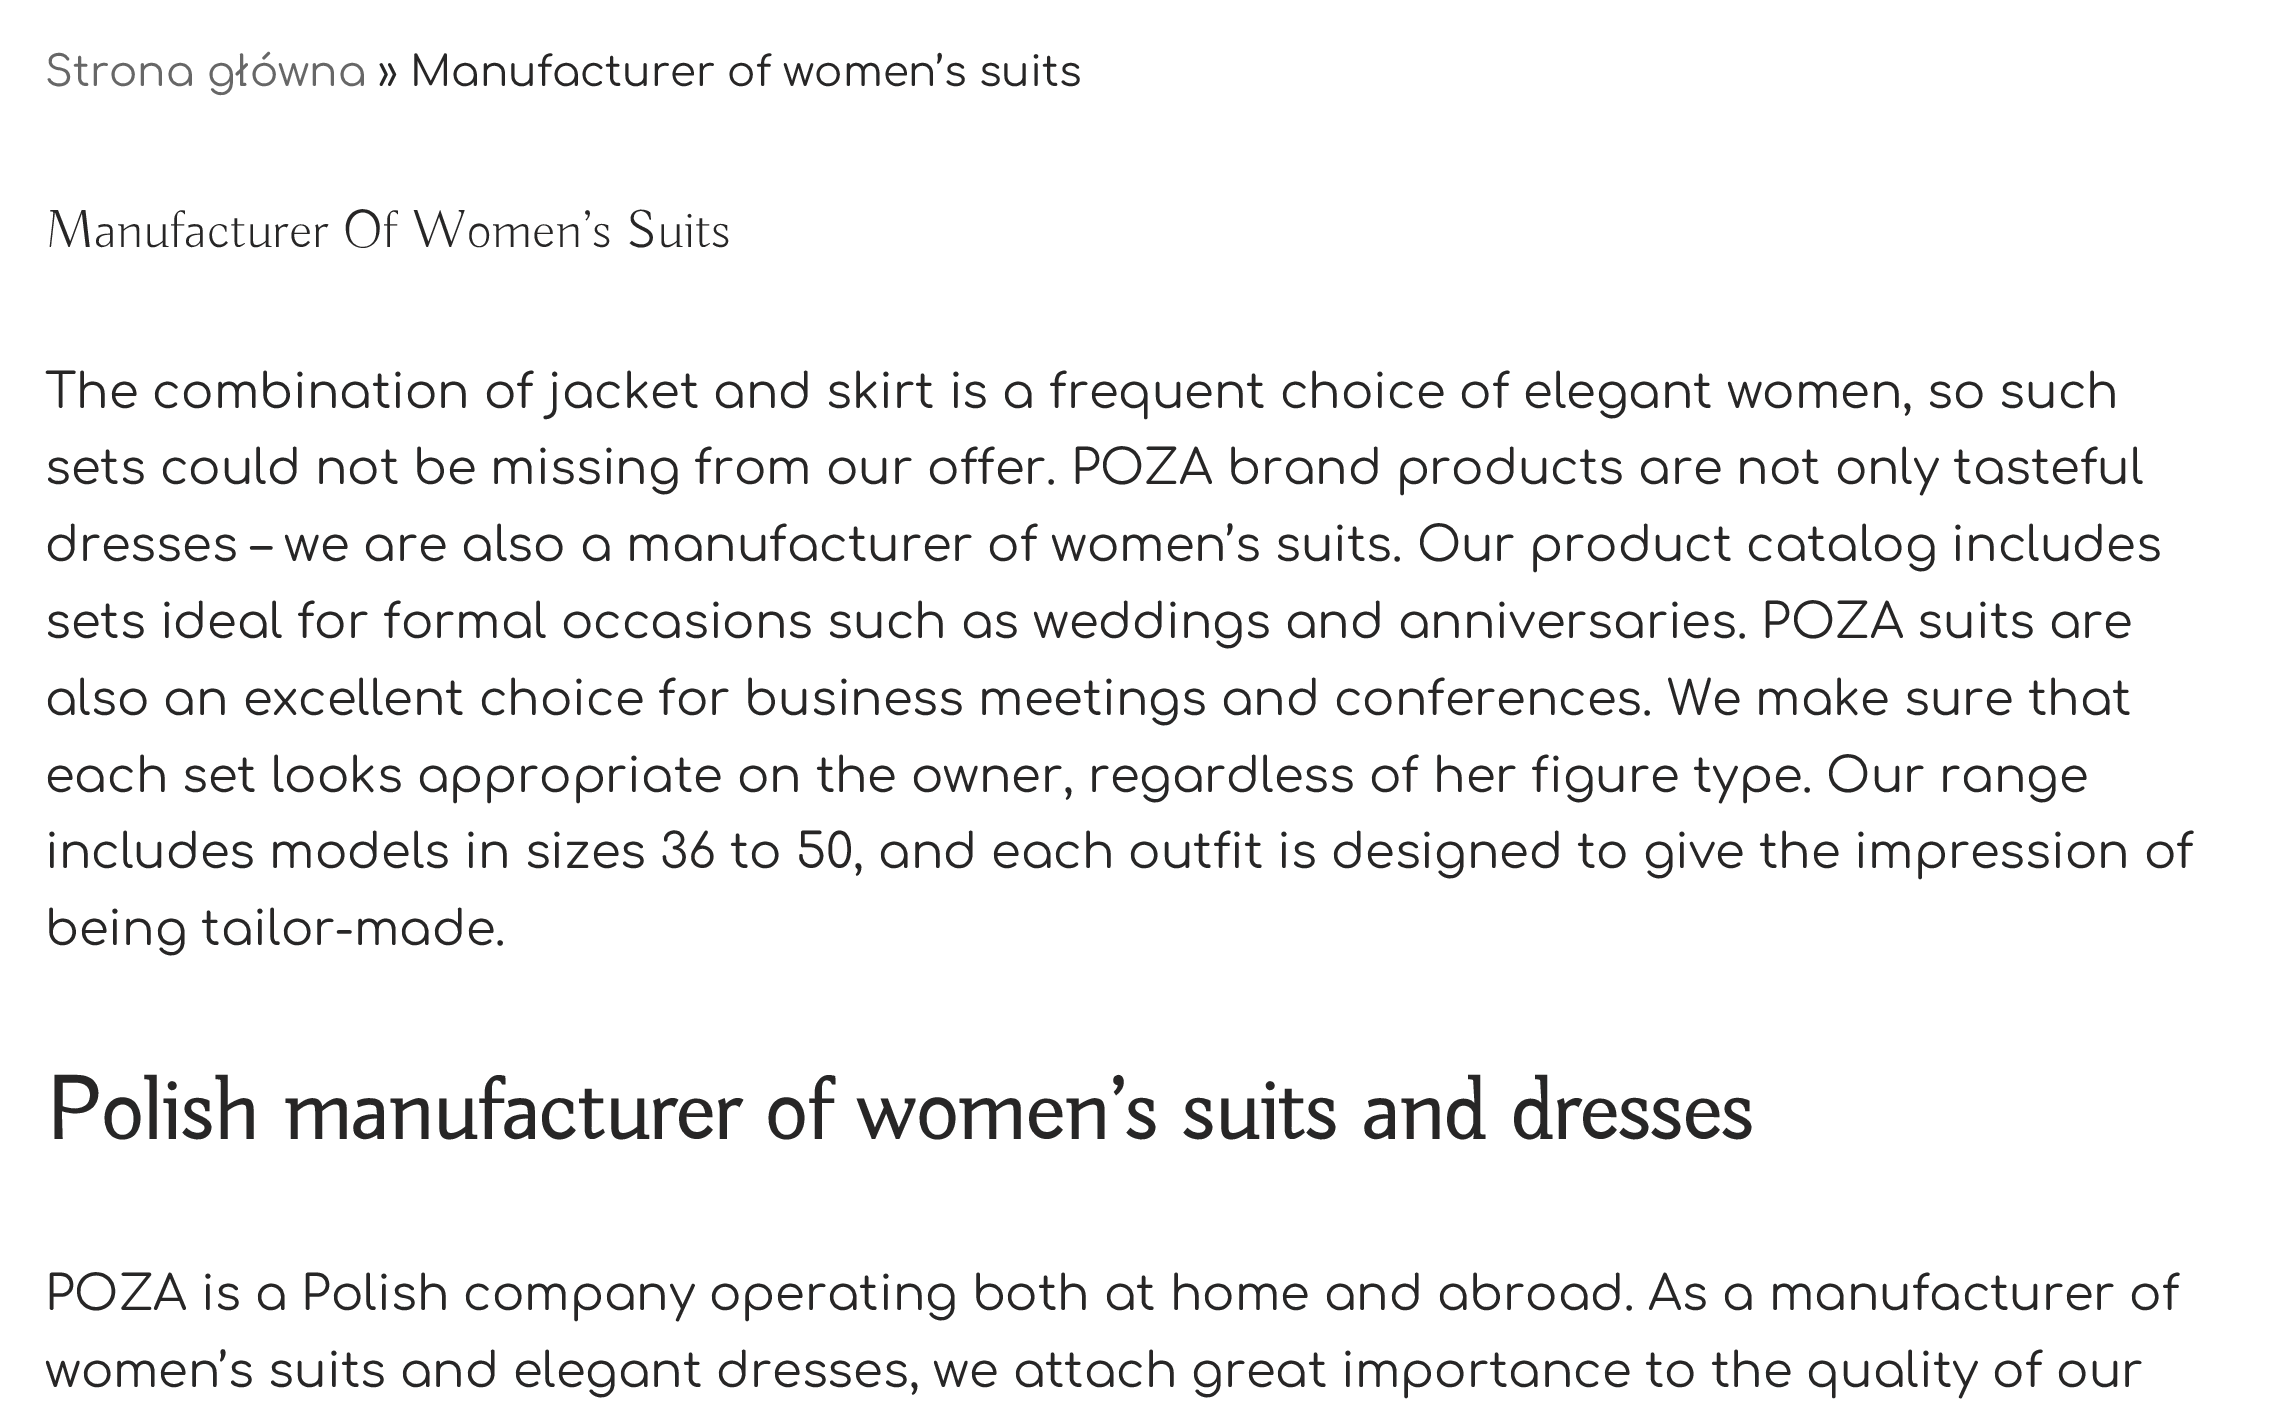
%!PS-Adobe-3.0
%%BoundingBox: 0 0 2276 1411
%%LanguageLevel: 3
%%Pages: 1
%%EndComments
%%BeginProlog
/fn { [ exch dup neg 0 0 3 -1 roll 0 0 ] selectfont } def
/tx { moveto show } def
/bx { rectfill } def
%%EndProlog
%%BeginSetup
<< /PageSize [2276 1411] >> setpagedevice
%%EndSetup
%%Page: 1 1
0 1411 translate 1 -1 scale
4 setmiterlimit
1 setgray
0 0 2276 1411 bx
/Comfortaa-Regular 42 fn
0.404 setgray
(Strona główna) 45 86 tx
0.153 0.149 0.149 setrgbcolor
(» Manufacturer of women’s suits) 378 86 tx
/Buda-Light 54 fn
(Manufacturer Of Women’s Suits) 45 247 tx
/Comfortaa-Regular 48 fn
(The combination of jacket and skirt is a frequent choice of elegant women, so such) 45 408 tx
(sets could not be missing from our offer. POZA brand products are not only tasteful) 45 484 tx
(dresses – we are also a manufacturer of women’s suits. Our product catalog includes) 45 561 tx
(sets ideal for formal occasions such as weddings and anniversaries. POZA suits are) 45 638 tx
(also an excellent choice for business meetings and conferences. We make sure that) 45 715 tx
(each set looks appropriate on the owner, regardless of her figure type. Our range) 45 792 tx
(includes models in sizes 36 to 50, and each outfit is designed to give the impression of) 45 868 tx
(being tailor-made.) 45 945 tx
/Buda-Bold 90 fn
(Polish manufacturer of women’s suits and dresses) 45 1139 tx
/Comfortaa-Regular 48 fn
(POZA is a Polish company operating both at home and abroad. As a manufacturer of) 45 1310 tx
(women’s suits and elegant dresses, we attach great importance to the quality of our) 45 1387 tx
showpage
%%EOF
